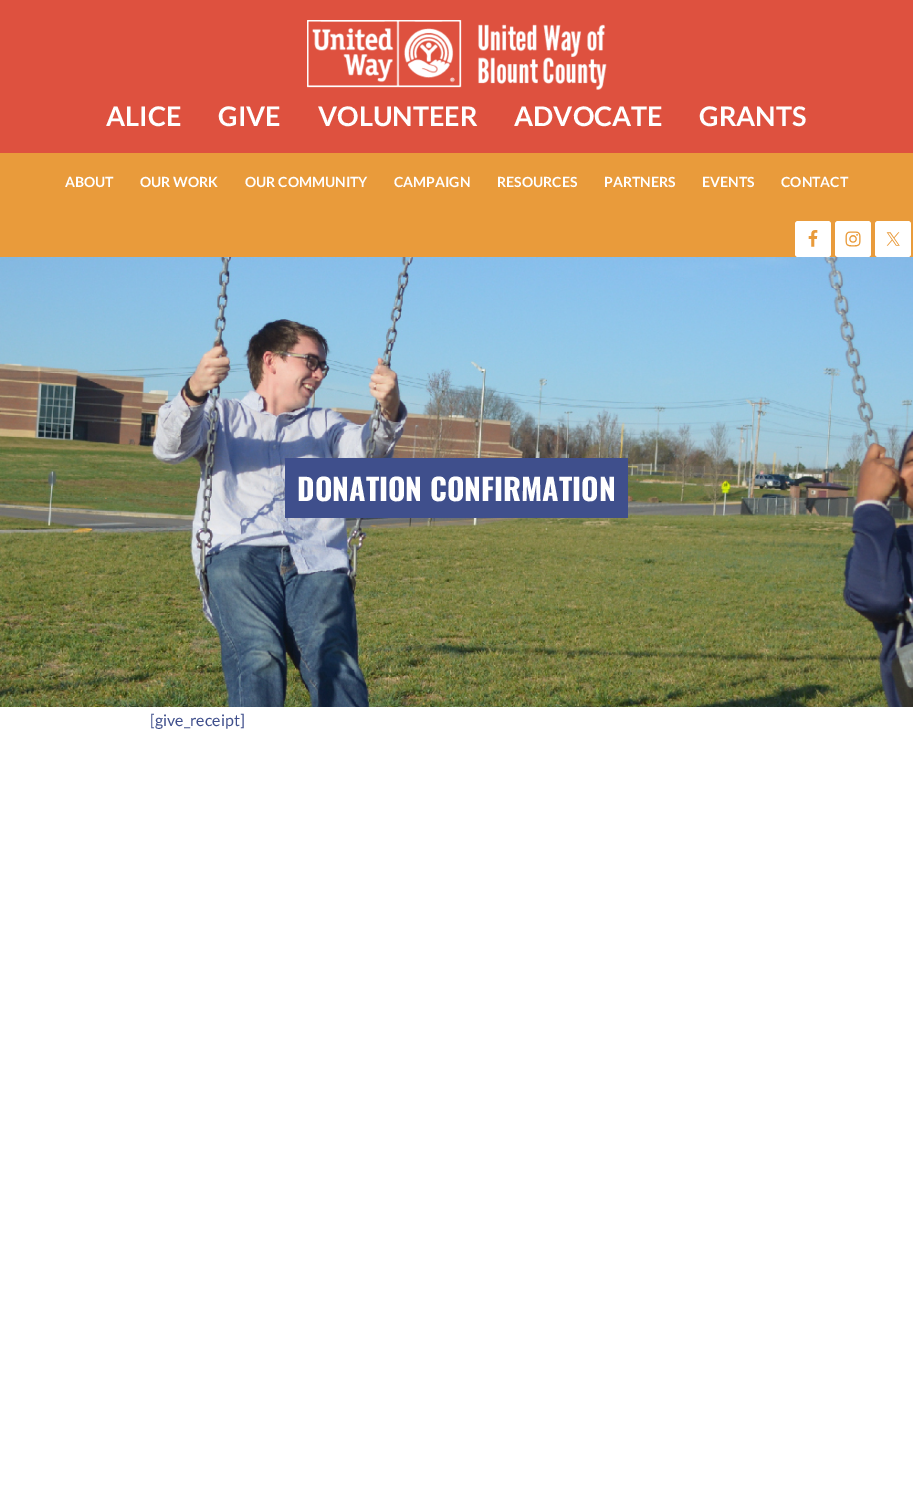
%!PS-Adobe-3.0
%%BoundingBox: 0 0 913 1502
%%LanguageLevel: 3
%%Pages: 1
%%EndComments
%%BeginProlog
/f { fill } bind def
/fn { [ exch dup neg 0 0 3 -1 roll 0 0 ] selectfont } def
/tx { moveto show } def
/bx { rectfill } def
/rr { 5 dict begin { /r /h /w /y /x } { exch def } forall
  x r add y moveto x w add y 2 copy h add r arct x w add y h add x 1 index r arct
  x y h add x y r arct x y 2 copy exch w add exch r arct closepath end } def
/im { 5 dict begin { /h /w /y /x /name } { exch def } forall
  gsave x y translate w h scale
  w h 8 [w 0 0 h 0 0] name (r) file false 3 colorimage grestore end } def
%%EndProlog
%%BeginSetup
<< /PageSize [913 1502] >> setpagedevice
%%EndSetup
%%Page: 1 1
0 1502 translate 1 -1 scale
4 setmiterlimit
1 setgray
0 0 913 1502 bx
0.871 0.318 0.247 setrgbcolor
0 0 913 153 bx
(image0.raw) 307 20 300 70 im
/Lato-Bold 27 fn
1 setgray
(ALICE) 106 126 tx
(GIVE) 218 126 tx
(VOLUNTEER) 318 126 tx
(ADVOCATE) 514 126 tx
(GRANTS) 699 126 tx
0.914 0.608 0.231 setrgbcolor
0 153 913 104 bx
/Lato-Bold 14 fn
1 setgray
(ABOUT) 65 187 tx
(OUR WORK) 140 187 tx
(OUR COMMUNITY) 245 187 tx
(CAMPAIGN) 394 187 tx
(RESOURCES) 497 187 tx
(PARTNERS) 604 187 tx
(EVENTS) 702 187 tx
(CONTACT) 781 187 tx
795 221 36 36 3 rr f
(image1.raw) 808 230 10 17 im
835 221 36 36 3 rr f
(image2.raw) 845 231 16 16 im
875 221 36 36 3 rr f
(image3.raw) 886 232 14 14 im
(image4.raw) 0 257 913 450 im
0.247 0.31 0.549 setrgbcolor
285 458 343 60 bx
/Oswald-Bold 30 fn
1 setgray
(DONATION CONFIRMATION) 297 501 tx
/Lato-Regular 16 fn
0.247 0.31 0.549 setrgbcolor
([give_receipt]) 150 726 tx
showpage
%%EOF
